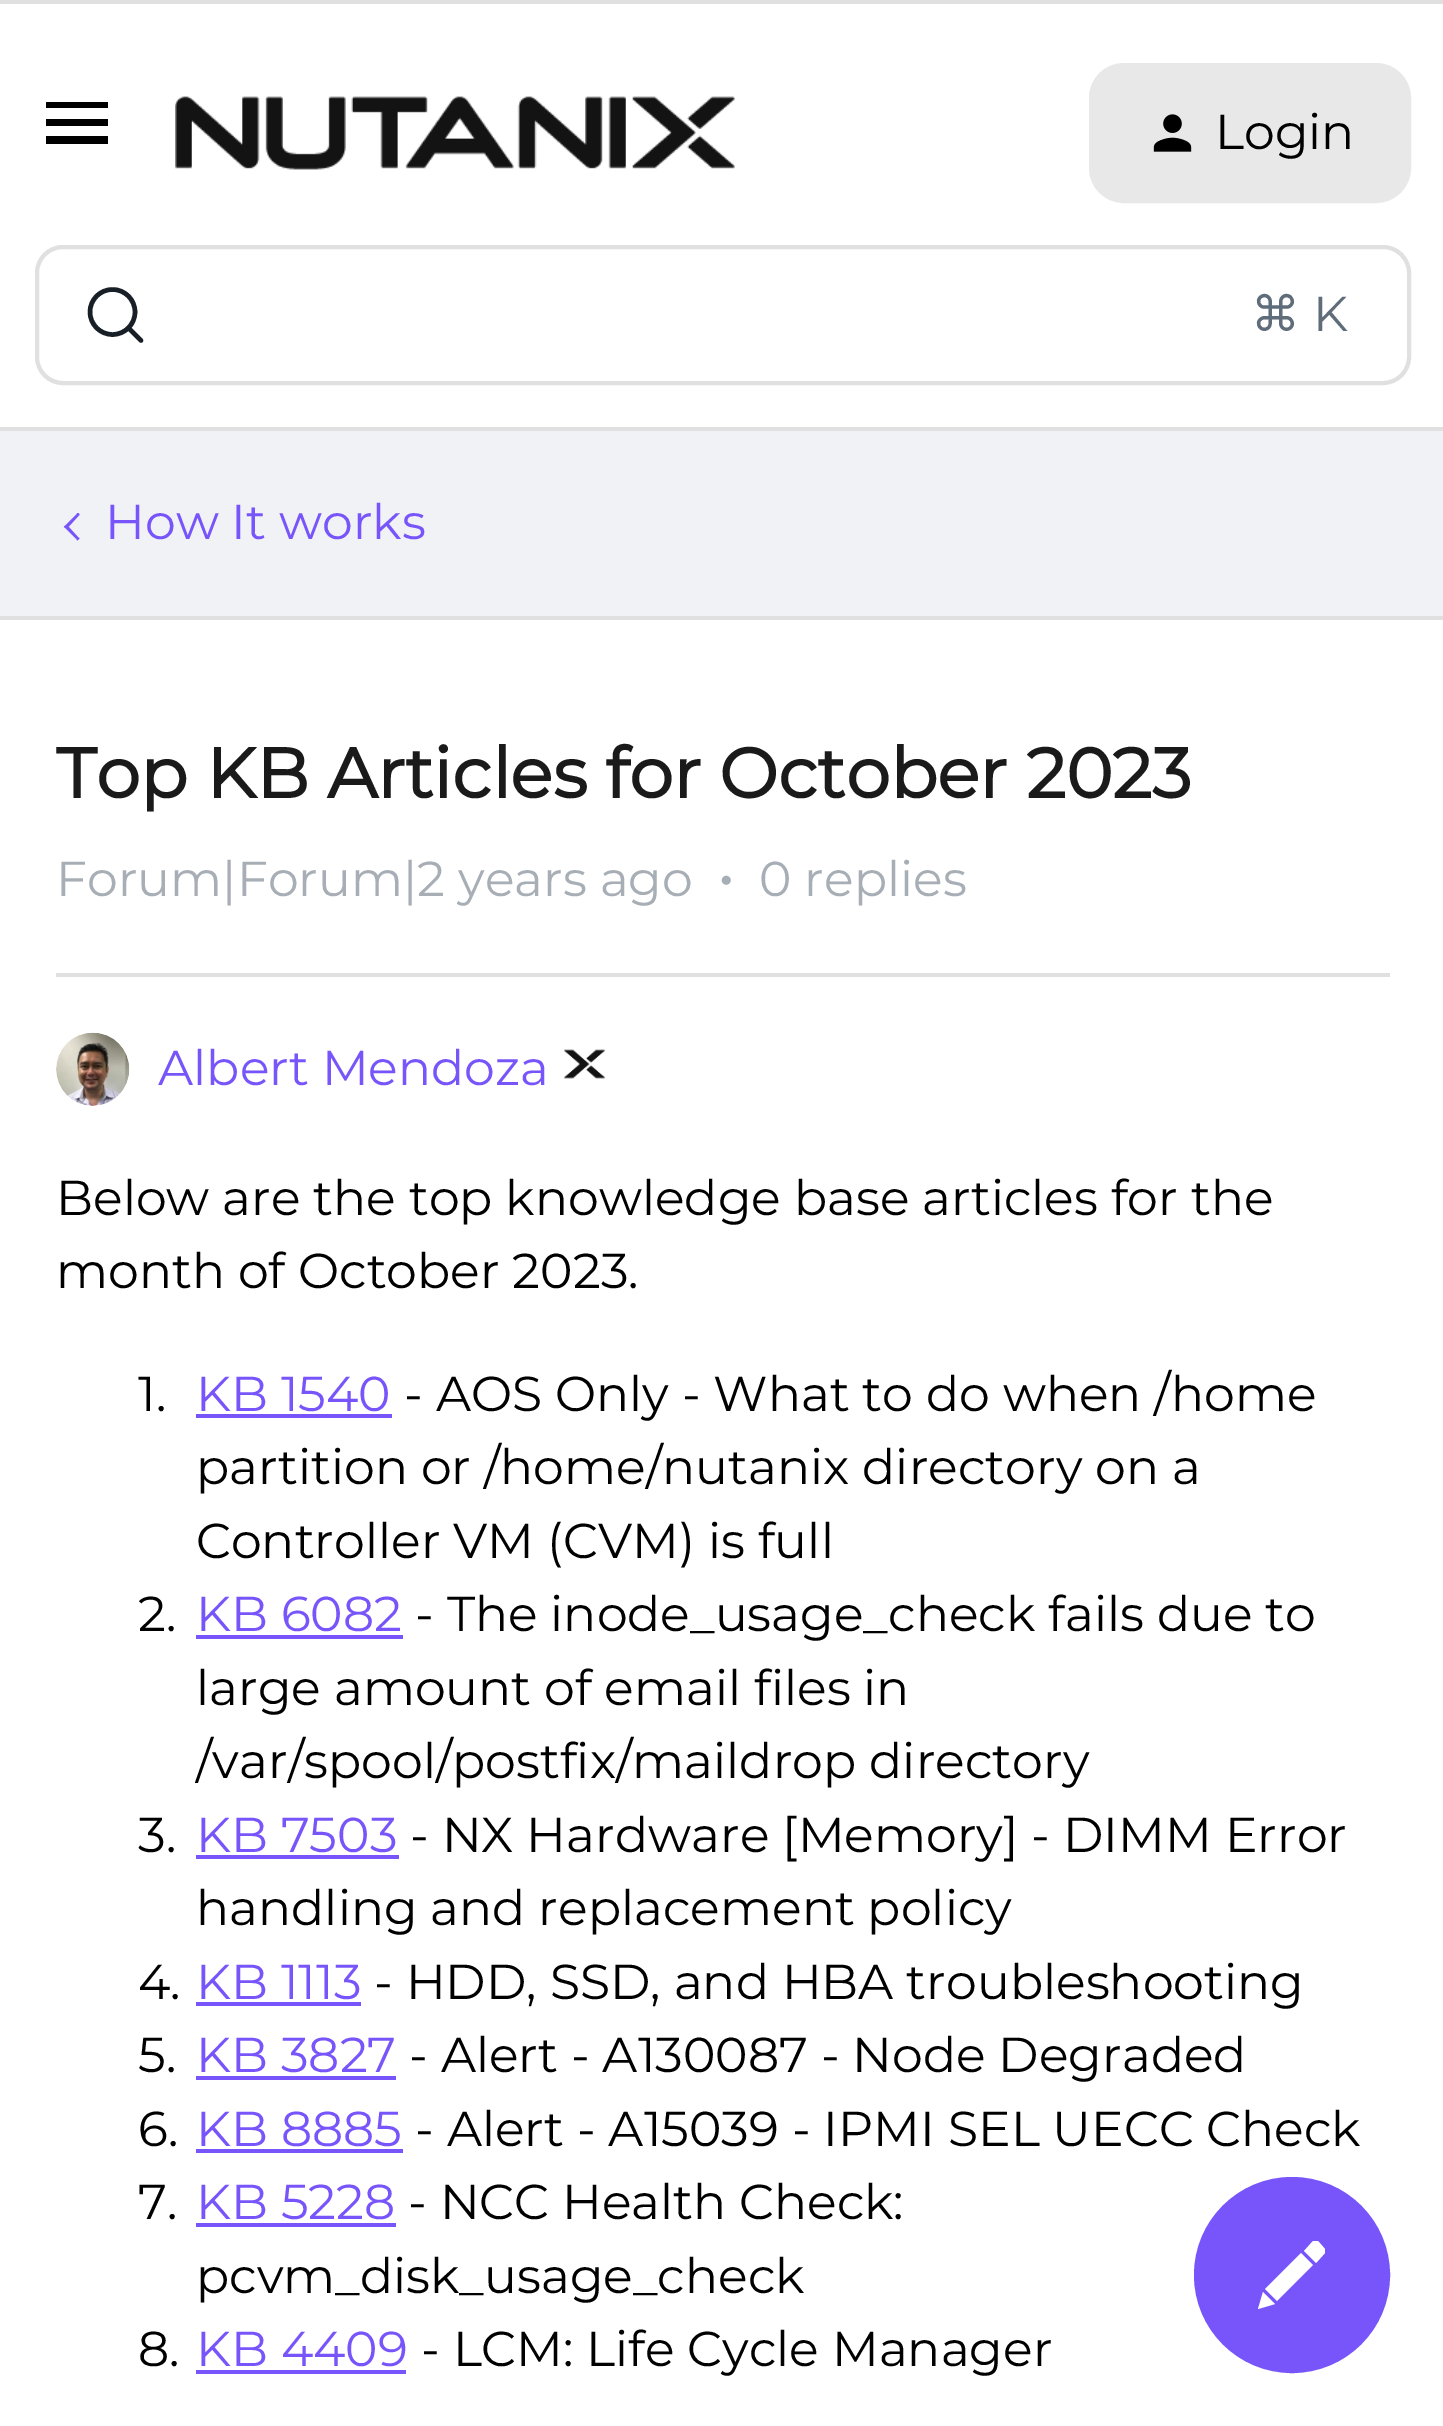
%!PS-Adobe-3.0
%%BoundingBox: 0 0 1443 2426
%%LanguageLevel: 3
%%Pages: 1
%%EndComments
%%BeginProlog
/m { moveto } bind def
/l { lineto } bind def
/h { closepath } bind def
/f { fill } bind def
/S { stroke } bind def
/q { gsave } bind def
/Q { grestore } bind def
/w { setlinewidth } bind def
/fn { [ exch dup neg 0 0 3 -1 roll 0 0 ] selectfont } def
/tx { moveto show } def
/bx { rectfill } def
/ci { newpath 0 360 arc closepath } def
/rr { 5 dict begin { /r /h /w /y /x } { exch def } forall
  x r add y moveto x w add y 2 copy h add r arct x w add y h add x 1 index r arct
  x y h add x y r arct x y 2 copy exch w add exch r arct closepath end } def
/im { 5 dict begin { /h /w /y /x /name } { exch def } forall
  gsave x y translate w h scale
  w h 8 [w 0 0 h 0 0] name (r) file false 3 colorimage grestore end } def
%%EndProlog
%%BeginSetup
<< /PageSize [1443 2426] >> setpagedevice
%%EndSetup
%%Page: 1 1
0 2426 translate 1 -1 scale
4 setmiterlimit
0.941 0.949 0.965 setrgbcolor
0 0 1443 2426 bx
1 setgray
0 4 1443 423 bx
0.878 setgray
0 0 1443 4 bx
0 427 1443 4 bx
0 setgray
46 144 m 108 144 l 108 136 l 46 136 l h 46 126 m 108 126 l 108 119 l 46 119 l h 46 102 m 46 108 l 108 108 l 108 102 l h f
(image0.raw) 175 96 560 74 im
0.91 setgray
1091 65 318 136 33 rr q f Q
4 w
S
(image1.raw) 1153 114 39 38 im
/Montserrat-Thin 49 fn
0 setgray
(Login) 1215 149 tx
0.878 setgray
37 247 1372 136 26 rr S
0.094 0.122 0.149 setrgbcolor
4.5 w
112.5 312 22.5 ci S
1 setlinecap
128.5 328 m 141 340.5 l S
/DejaVuSans-Regular 49 fn
0.373 0.424 0.478 setrgbcolor
(⌘) 1251 331 tx
/Montserrat-Thin 49 fn
(K) 1313 331 tx
(image2.raw) 63 513 17 28 im
0.471 0.333 0.98 setrgbcolor
(How It works) 105 539 tx
1 setgray
0 620 1443 1806 bx
0.878 setgray
0 616 1443 4 bx
/Montserrat-Bold 70 fn
0.102 setgray
(Top KB Articles for October 2023) 56 798 tx
/Montserrat-Thin 49 fn
0.655 0.682 0.71 setrgbcolor
(Forum|Forum|2 years ago) 56 896 tx
(image3.raw) 721 875 10 10 im
(0 replies) 759 896 tx
0.878 setgray
56 973 1334 4 bx
(image4.raw) 56 1032 74 74 im
0.471 0.333 0.98 setrgbcolor
(Albert Mendoza) 158 1085 tx
(image5.raw) 563 1049 43 30 im
0 setgray
(Below are the top knowledge base articles for the) 56 1215 tx
(month of October 2023.) 56 1288 tx
(1.) 138 1411 tx
0.471 0.333 0.98 setrgbcolor
(KB 1540) 196 1411 tx
196 1414 196 4 bx
0 setgray
(- AOS Only - What to do when /home) 404 1411 tx
(partition or /home/nutanix directory on a) 196 1484 tx
(Controller VM \(CVM\) is full) 196 1558 tx
(2.) 138 1631 tx
0.471 0.333 0.98 setrgbcolor
(KB 6082) 196 1631 tx
196 1635 207 4 bx
0 setgray
(- The inode_usage_check fails due to) 415 1631 tx
(large amount of email files in) 196 1705 tx
(/var/spool/postfix/maildrop directory) 196 1778 tx
(3.) 138 1852 tx
0.471 0.333 0.98 setrgbcolor
(KB 7503) 196 1852 tx
196 1855 203 4 bx
0 setgray
(- NX Hardware [Memory] - DIMM Error) 410 1852 tx
(handling and replacement policy) 196 1925 tx
(4.) 138 1999 tx
0.471 0.333 0.98 setrgbcolor
(KB 1113) 196 1999 tx
196 2002 165 4 bx
0 setgray
(- HDD, SSD, and HBA troubleshooting) 374 1999 tx
(5.) 138 2072 tx
0.471 0.333 0.98 setrgbcolor
(KB 3827) 196 2072 tx
196 2076 200 4 bx
0 setgray
(- Alert - A130087 - Node Degraded) 409 2072 tx
(6.) 138 2146 tx
0.471 0.333 0.98 setrgbcolor
(KB 8885) 196 2146 tx
196 2149 207 4 bx
0 setgray
(- Alert - A15039 - IPMI SEL UECC Check) 415 2146 tx
(7.) 138 2219 tx
0.471 0.333 0.98 setrgbcolor
(KB 5228) 196 2219 tx
196 2223 200 4 bx
0 setgray
(- NCC Health Check:) 408 2219 tx
(pcvm_disk_usage_check) 196 2293 tx
(8.) 138 2366 tx
0.471 0.333 0.98 setrgbcolor
(KB 4409) 196 2366 tx
196 2370 210 4 bx
0 setgray
(- LCM: Life Cycle Manager) 421 2366 tx
0.471 0.333 0.98 setrgbcolor
1292 2275 96 ci q f Q
4 w
0 setlinecap
S
1 setgray
1265 2289 m 1301 2253 l 1313 2265 l 1277 2301 l h 1313 2241 m 1318 2241 l 1325 2249 l 1325 2253 l 1316 2263 l 1304 2251 l h 1258 2309 m 1263 2292 l 1275 2304 l h f
showpage
%%EOF
